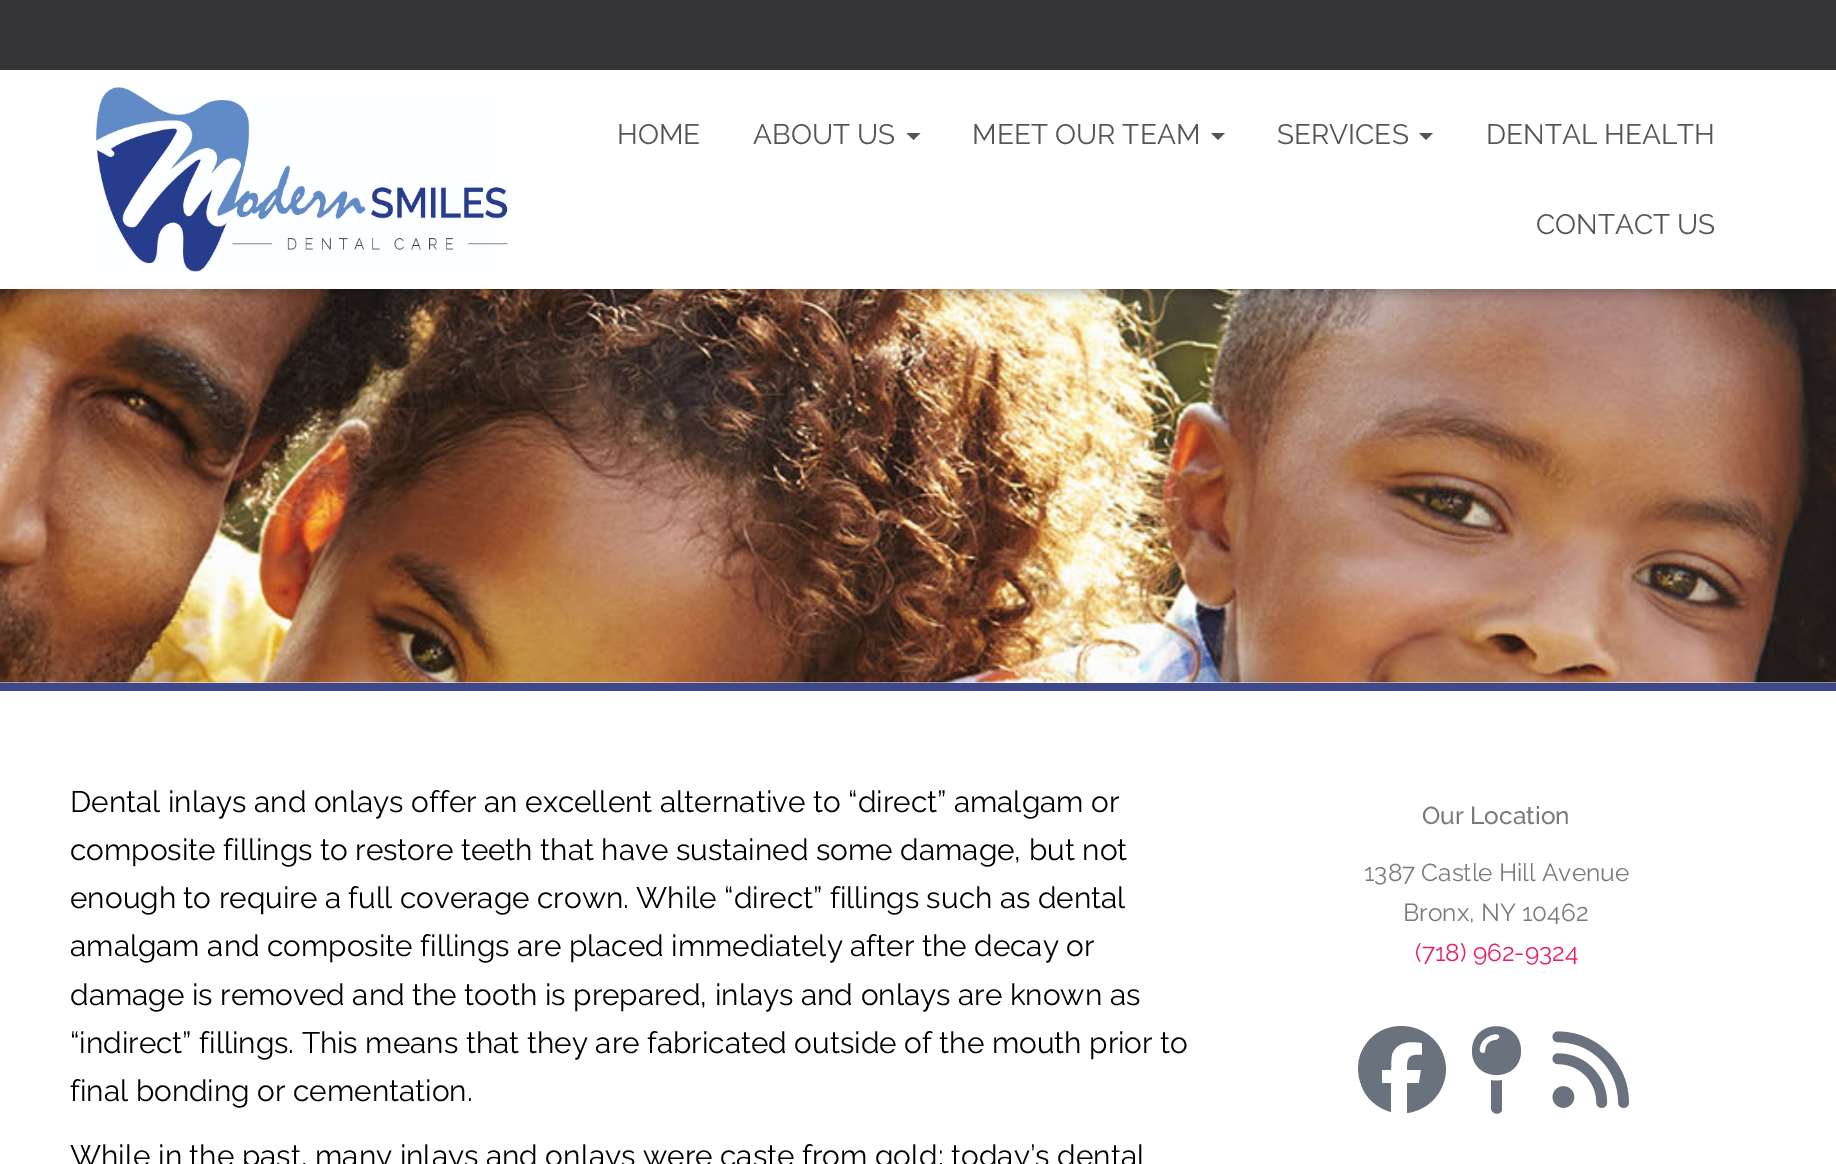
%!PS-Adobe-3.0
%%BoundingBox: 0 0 1836 1164
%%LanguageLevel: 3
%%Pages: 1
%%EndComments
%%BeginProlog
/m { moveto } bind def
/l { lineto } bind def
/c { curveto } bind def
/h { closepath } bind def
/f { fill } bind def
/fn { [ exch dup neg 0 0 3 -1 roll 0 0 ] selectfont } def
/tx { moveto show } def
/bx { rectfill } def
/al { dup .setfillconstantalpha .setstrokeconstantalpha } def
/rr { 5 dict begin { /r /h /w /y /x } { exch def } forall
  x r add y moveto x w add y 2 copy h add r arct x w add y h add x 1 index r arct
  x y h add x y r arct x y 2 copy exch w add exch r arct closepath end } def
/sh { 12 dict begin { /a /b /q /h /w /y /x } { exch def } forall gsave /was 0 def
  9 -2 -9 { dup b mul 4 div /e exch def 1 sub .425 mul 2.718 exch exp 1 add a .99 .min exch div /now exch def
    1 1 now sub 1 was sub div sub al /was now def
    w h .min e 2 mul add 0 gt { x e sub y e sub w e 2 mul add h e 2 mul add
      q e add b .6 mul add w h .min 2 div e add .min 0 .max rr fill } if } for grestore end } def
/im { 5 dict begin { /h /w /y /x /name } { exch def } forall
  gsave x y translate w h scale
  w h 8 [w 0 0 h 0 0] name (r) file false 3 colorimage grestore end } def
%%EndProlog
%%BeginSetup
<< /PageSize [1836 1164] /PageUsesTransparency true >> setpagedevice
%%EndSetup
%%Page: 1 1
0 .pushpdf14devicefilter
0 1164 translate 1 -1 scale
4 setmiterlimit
1 setgray
0 0 1836 1164 bx
(image1.raw) 0 289 1836 394 im
0 setgray
4 81 1830 211 0 4.5 0.1 sh
0 72 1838 219 0 9 0.12 sh
11 82 1816 198 0 9 0.42 sh
0.212 0.208 0.216 setrgbcolor
0 0 1836 70 bx
1 setgray
0 70 1836 219 bx
(image0.raw) 96 87 412 185 im
/Raleway-Regular 28 fn
0.333 setgray
(HOME) 617 144 tx
(ABOUT US) 753 144 tx
906.5 133 m 920.5 133 l 913.5 140 l h f
(MEET OUR TEAM) 972 144 tx
1211 133 m 1225 133 l 1218 140 l h f
(SERVICES) 1277 144 tx
1419 133 m 1433 133 l 1426 140 l h f
(DENTAL HEALTH) 1486 144 tx
(CONTACT US) 1536 234 tx
0.239 0.282 0.541 setrgbcolor
0 683 1836 8 bx
/Raleway-Regular 29.75 fn
0 setgray
(Dental inlays and onlays offer an excellent alternative to “direct” amalgam or) 70 812 tx
(composite fillings to restore teeth that have sustained some damage, but not) 70 860 tx
(enough to require a full coverage crown. While “direct” fillings such as dental) 70 908 tx
(amalgam and composite fillings are placed immediately after the decay or) 70 956 tx
(damage is removed and the tooth is prepared, inlays and onlays are known as) 70 1005 tx
(“indirect” fillings. This means that they are fabricated outside of the mouth prior to) 70 1053 tx
(final bonding or cementation.) 70 1101 tx
(While in the past, many inlays and onlays were caste from gold; today’s dental) 70 1166 tx
/Raleway-Medium 24.5 fn
0.478 setgray
(Our Location) 1422 824 tx
/Raleway-Regular 24.5 fn
(1387 Castle Hill Avenue) 1364 881 tx
(Bronx, NY 10462) 1403 921 tx
0.914 0.118 0.388 setrgbcolor
(\(718\) 962-9324) 1415 961 tx
0.412 0.447 0.49 setrgbcolor
1446 1070 m 1445 1022 1380 1009 1361 1053 c 1357 1063 1357 1074 1361 1084 c 1365 1098 1377 1108 1391 1112 c 1391 1083 l 1382 1083 l 1382 1070 l 1391 1070 l 1391 1065 1391 1059 1392 1054 c 1397 1041 1411 1041 1422 1043 c 1422 1055 l 1409 1054 1407 1057 1407 1070 c 1421 1070 l 1419 1083 l 1407 1083 l 1407 1113 l 1429 1110 1445 1092 1446 1070 c h f
1472 1051 m 1472 1018 1521 1018 1521 1051 c 1521 1083 1472 1083 1472 1051 c h 1496 1040 m 1497 1040 1498 1039 1499 1038 c 1502 1031 1485 1034 1481 1044 c 1480 1046 1478 1052 1482 1053 c 1486 1054 1485 1050 1486 1047 c 1487 1043 1492 1040 1496 1040 c h 1491 1108 m 1491 1080 l 1494 1081 1498 1081 1502 1080 c 1502 1110 l 1500 1116 1491 1114 1491 1108 c h f
(image2.raw) 1552 1031 77 77 im
.poppdf14devicefilter showpage
%%EOF
